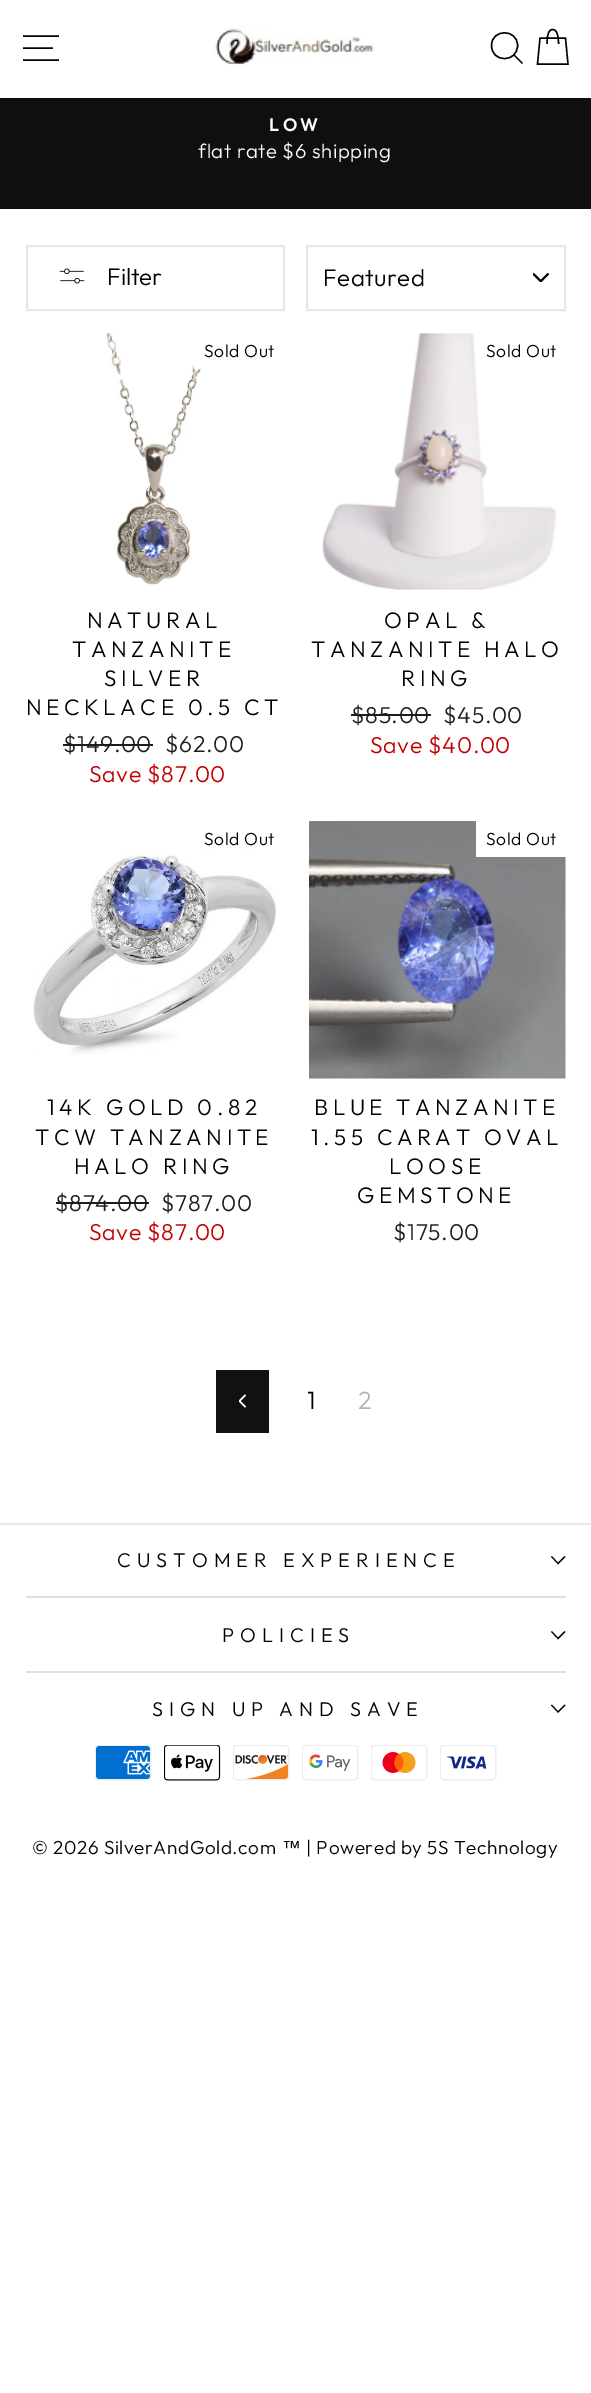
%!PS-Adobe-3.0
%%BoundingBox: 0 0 591 2393
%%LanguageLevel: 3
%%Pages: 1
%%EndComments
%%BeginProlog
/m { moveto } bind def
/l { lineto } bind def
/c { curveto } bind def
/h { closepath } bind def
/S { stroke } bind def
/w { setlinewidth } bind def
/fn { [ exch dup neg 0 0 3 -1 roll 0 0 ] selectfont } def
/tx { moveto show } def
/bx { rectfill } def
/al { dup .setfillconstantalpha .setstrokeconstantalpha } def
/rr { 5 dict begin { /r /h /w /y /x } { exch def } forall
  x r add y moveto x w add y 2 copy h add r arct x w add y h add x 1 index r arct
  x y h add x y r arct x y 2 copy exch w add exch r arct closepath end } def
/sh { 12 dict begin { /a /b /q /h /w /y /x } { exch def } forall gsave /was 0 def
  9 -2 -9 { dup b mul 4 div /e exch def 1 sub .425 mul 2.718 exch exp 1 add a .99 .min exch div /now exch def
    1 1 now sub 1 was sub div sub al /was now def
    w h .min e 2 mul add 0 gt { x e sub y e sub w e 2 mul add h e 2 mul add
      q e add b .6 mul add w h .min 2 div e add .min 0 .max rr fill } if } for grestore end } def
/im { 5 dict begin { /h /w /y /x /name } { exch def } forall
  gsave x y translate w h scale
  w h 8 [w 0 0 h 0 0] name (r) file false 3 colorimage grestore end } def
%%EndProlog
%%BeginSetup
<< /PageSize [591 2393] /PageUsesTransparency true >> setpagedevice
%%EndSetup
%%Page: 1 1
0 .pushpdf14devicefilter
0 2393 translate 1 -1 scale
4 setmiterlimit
1 setgray
0 0 591 2393 bx
0.059 setgray
0 98 591 111 bx
0 setgray
0 0 591 98 0 1 0.2 sh
1 setgray
0 0 591 98 bx
0 setgray
1.4 w
23 36 m 59 36 l 23 48 m 53 48 l 23 60 m 59 60 l S
(image0.raw) 213 26 161 40 im
517.5 45.5 m 517.5 63 491.5 63 491.5 45.5 c 491.5 28.5 517.5 28.5 517.5 45.5 c h 522.5 63.5 m 514 55 l S
547 44 m 547 32.5 549.5 29.5 552.5 29.5 c 556 29.5 558.5 32.5 558.5 44 c 540 38 m 565.5 38 l 568 64 l 537.5 64 l h S
/Outfit-SemiBold 18 fn
1 setgray
269 131 m 3.5 0 (LOW) ashow
/Outfit-Light 20.25 fn
198 158 m 0.6 0 (flat rate $6 shipping) ashow
0.91 0.91 0.882 setrgbcolor
2 w
27 246 257 64 rectstroke
(image1.raw) 59 268 26 16 im
/Outfit-Light 24 fn
0 setgray
(Filter) 107 285 tx
(image2.raw) 533 273 16 9 im
0.91 0.91 0.882 setrgbcolor
307 246 258 64 rectstroke
0 setgray
323 286 m 0.5 0 (Featured) ashow
(image3.raw) 105 333 107 252 im
1 setgray
194 333 18 36 bx
/Outfit-Light 17.5 fn
0 setgray
204 357 m 0.6 0 (Sold Out) ashow
/Outfit-Light 22.5 fn
87 628 m 4.5 0 (NATURAL) ashow
72 657 m 4.5 0 (TANZANITE) ashow
104 686 m 4.5 0 (SILVER) ashow
26 715 m 4.5 0 (NECKLACE 0.5 CT) ashow
/Outfit-Light 23 fn
0.11 0.114 0.114 setrgbcolor
63 752 m 0.6 0 ($149.00) ashow
63 744 90 2 bx
165 752 m 0.6 0 ($62.00) ashow
0.761 0 0 setrgbcolor
89 782 m 0.6 0 (Save $87.00) ashow
(image4.raw) 322 333 235 257 im
1 setgray
476 365 1 2 bx
/Outfit-Light 17.5 fn
0 setgray
486 357 m 0.6 0 (Sold Out) ashow
/Outfit-Light 22.5 fn
384 628 m 4.5 0 (OPAL &) ashow
311 657 m 4.5 0 (TANZANITE HALO) ashow
401 686 m 4.5 0 (RING) ashow
/Outfit-Light 23 fn
0.11 0.114 0.114 setrgbcolor
351 723 m 0.6 0 ($85.00) ashow
351 714 80 2 bx
443 723 m 0.6 0 ($45.00) ashow
0.761 0 0 setrgbcolor
370 753 m 0.6 0 (Save $40.00) ashow
/Outfit-Light 17.5 fn
0 setgray
204 845 m 0.6 0 (Sold Out) ashow
(image5.raw) 33 853 243 202 im
/Outfit-Light 22.5 fn
47 1115 m 4.5 0 (14K GOLD 0.82) ashow
35 1145 m 4.5 0 (TCW TANZANITE) ashow
74 1174 m 4.5 0 (HALO RING) ashow
/Outfit-Light 23 fn
0.11 0.114 0.114 setrgbcolor
55 1211 m 0.6 0 ($874.00) ashow
56 1202 93 2 bx
161 1211 m 0.6 0 ($787.00) ashow
0.761 0 0 setrgbcolor
89 1240 m 0.6 0 (Save $87.00) ashow
(image6.raw) 309 821 257 258 im
1 setgray
476 821 90 36 bx
/Outfit-Light 17.5 fn
0 setgray
486 845 m 0.6 0 (Sold Out) ashow
/Outfit-Light 22.5 fn
314 1115 m 4.5 0 (BLUE TANZANITE) ashow
311 1145 m 4.5 0 (1.55 CARAT OVAL) ashow
389 1174 m 4.5 0 (LOOSE) ashow
357 1203 m 4.5 0 (GEMSTONE) ashow
/Outfit-Light 23 fn
0.11 0.114 0.114 setrgbcolor
393 1240 m 0.6 0 ($175.00) ashow
0.067 setgray
216 1370 53 63 bx
(image7.raw) 239 1394 7 14 im
/Outfit-Light 25 fn
0 setgray
307 1409 m 0.6 0 (1) ashow
0.702 setgray
358 1409 m 0.6 0 (2) ashow
0.91 0.91 0.882 setrgbcolor
0 1523 591 2 bx
/Outfit-Light 19.9 fn
0 setgray
117 1567 m 6 0 (CUSTOMER EXPERIENCE) ashow
1.1 w
551.5 1556.5 m 558 1563.5 l 565 1556.5 l S
0.878 setgray
26 1596 540 2 bx
0 setgray
222 1642 m 6 0 (POLICIES) ashow
551.5 1631.5 m 558 1638.5 l 565 1631.5 l S
0.878 setgray
26 1671 540 2 bx
0 setgray
152 1716 m 6 0 (SIGN UP AND SAVE) ashow
551.5 1705 m 558 1712 l 565 1705 l S
(image8.raw) 95 1745 57 36 im
(image9.raw) 164 1745 57 36 im
(image10.raw) 233 1745 57 36 im
(image11.raw) 302 1745 57 36 im
(image12.raw) 371 1745 57 36 im
(image13.raw) 440 1745 57 36 im
/Outfit-Light 18.9 fn
32 1854 m 0.6 0 (© 2026 SilverAndGold.com) ashow
/LiberationSans-Regular 18.9 fn
282 1854 m 0.6 0 (™) ashow
/Outfit-Light 18.9 fn
306 1854 m 0.6 0 (| Powered by 5S Technology) ashow
.poppdf14devicefilter showpage
%%EOF
